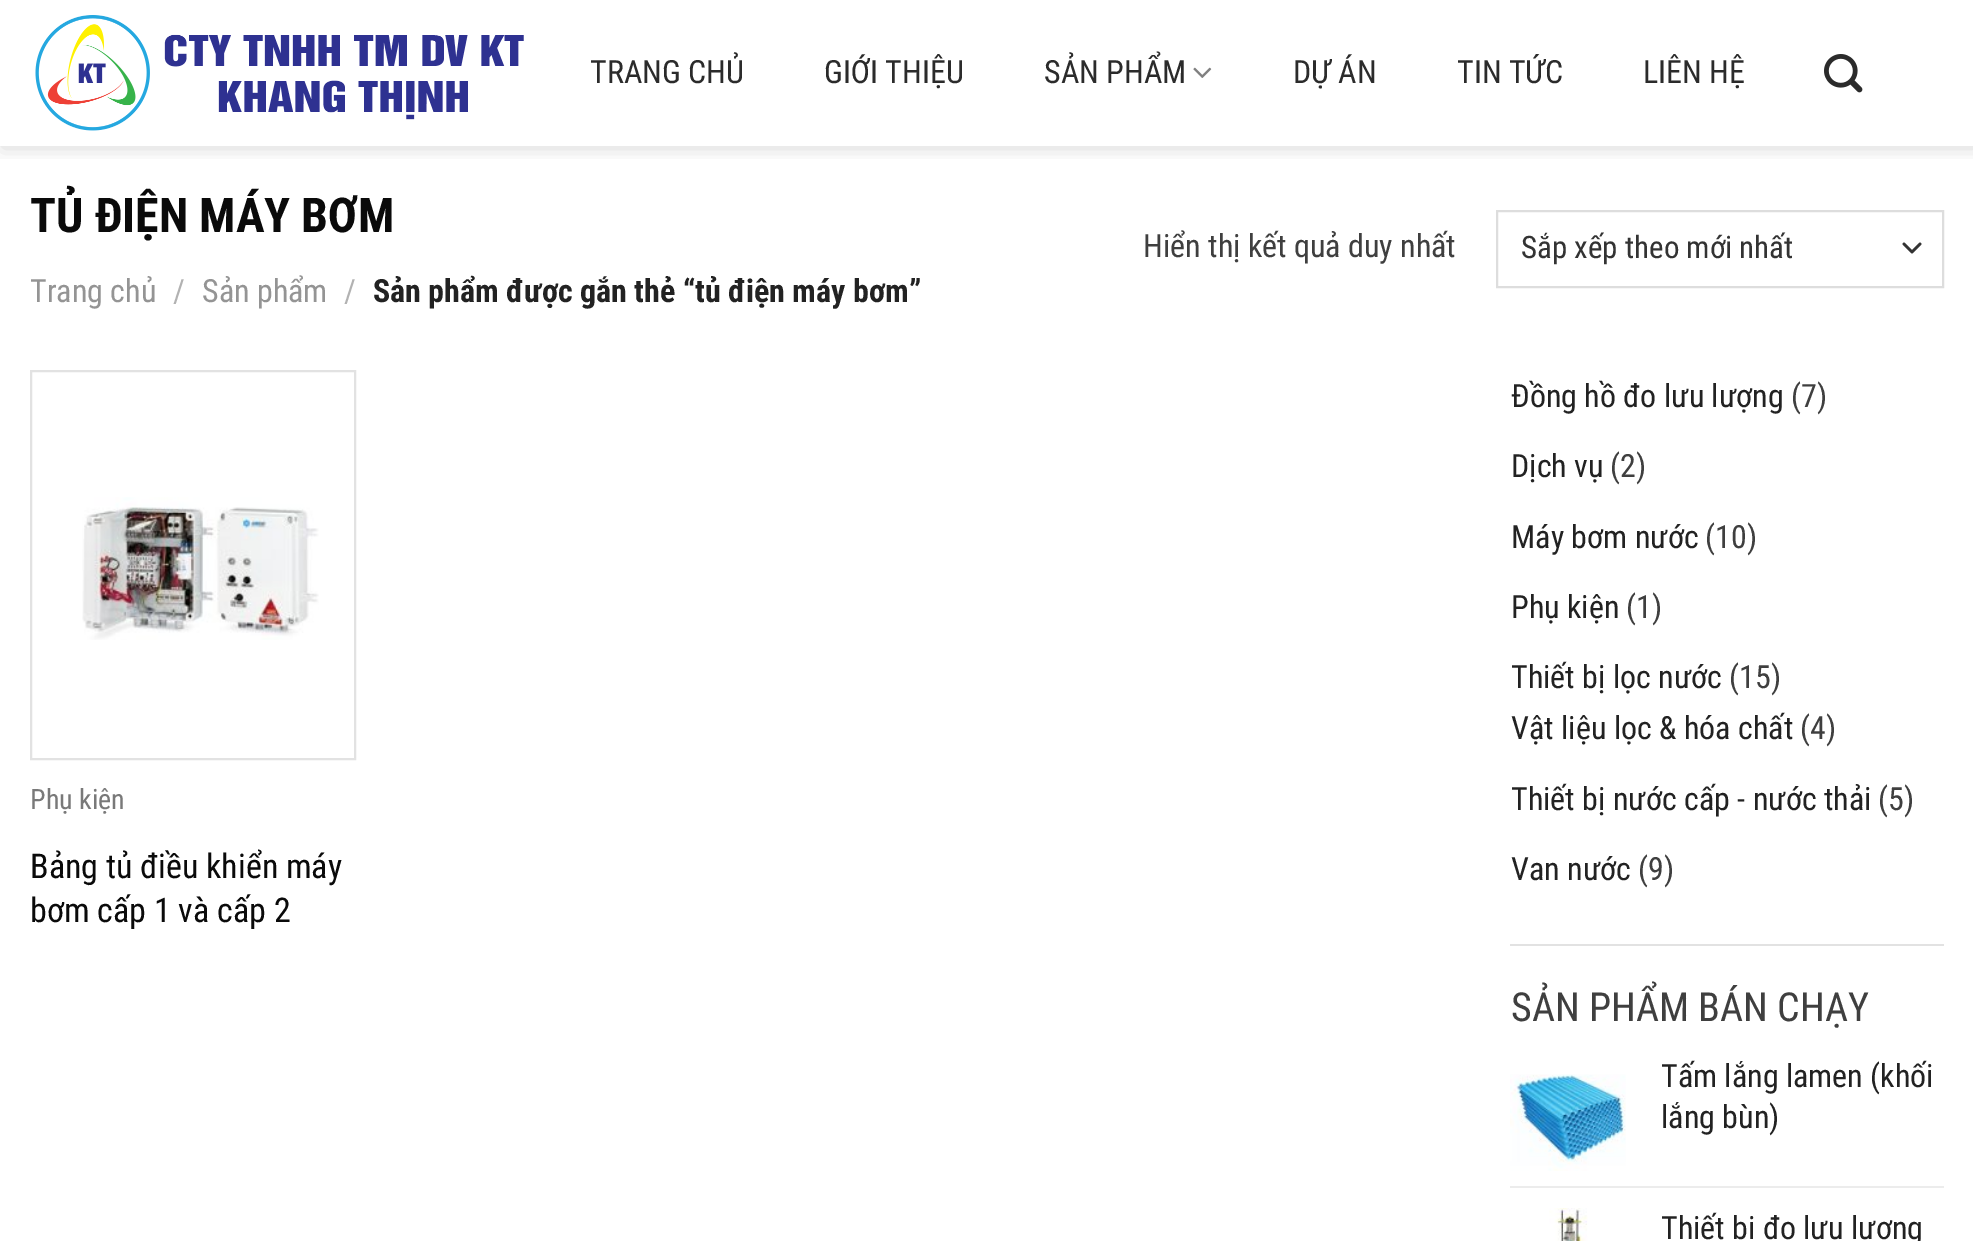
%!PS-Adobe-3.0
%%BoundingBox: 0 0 1973 1241
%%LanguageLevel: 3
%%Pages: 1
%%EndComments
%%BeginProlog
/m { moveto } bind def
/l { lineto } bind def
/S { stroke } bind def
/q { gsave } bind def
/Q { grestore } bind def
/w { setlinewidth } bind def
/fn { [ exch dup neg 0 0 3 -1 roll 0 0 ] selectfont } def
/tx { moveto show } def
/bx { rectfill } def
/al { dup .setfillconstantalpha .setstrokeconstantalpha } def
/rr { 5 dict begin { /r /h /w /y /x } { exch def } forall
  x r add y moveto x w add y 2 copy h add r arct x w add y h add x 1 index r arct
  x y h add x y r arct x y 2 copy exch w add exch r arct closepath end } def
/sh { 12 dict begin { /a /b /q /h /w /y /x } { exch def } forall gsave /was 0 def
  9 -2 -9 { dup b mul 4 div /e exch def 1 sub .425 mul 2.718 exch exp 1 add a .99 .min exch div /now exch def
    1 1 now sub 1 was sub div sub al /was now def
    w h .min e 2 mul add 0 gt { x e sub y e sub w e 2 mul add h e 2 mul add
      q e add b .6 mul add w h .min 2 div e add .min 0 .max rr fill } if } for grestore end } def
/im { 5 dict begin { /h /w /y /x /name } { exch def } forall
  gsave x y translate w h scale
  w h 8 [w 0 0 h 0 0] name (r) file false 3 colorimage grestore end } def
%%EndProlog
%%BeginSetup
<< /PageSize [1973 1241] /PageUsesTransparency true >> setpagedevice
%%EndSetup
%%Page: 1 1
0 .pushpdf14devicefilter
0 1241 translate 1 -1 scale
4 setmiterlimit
1 setgray
0 0 1973 1241 bx
q
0 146 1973 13 rectclip
0 setgray
2 2 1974 146 0 10 0.15 sh
Q
(image0.raw) 35 15 489 116 im
/RobotoCondensed-Regular 32 fn
0.169 setgray
(TRANG CHỦ) 590 83 tx
(GIỚI THIỆU) 824 83 tx
(SẢN PHẨM) 1044 83 tx
(image1.raw) 1193 67 19 11 im
(DỰ ÁN) 1293 83 tx
(TIN TỨC) 1457 83 tx
(LIÊN HỆ) 1643 83 tx
(image2.raw) 1824 54 39 39 im
/RobotoCondensed-Bold 48 fn
0.039 setgray
(TỦ ĐIỆN MÁY BƠM) 30 232 tx
/RobotoCondensed-Regular 32 fn
0.58 setgray
(Trang chủ) 30 302 tx
0.698 setgray
(/) 173 302 tx
0.58 setgray
(Sản phẩm) 202 302 tx
0.698 setgray
(/) 344 302 tx
/RobotoCondensed-Bold 32 fn
0.133 setgray
(Sản phẩm được gắn thẻ “tủ điện máy bơm”) 373 302 tx
/RobotoCondensed-Regular 32 fn
0.247 setgray
(Hiển thị kết quả duy nhất) 1143 257 tx
0.2 setgray
2.7 w
1 setlinecap
1 setlinejoin
1904 244 m 1912 252 l 1920 244 l S
0.867 setgray
2 w
0 setlinecap
0 setlinejoin
1497 211 446 76 rectstroke
/RobotoCondensed-Regular 31 fn
0.2 setgray
(Sắp xếp theo mới nhất) 1521 258 tx
0.886 setgray
31 371 324 388 rectstroke
(image3.raw) 82 497 237 143 im
/RobotoCondensed-Regular 28 fn
0.475 setgray
(Phụ kiện) 30 809 tx
/RobotoCondensed-Regular 34 fn
0.039 setgray
(Bảng tủ điều khiển máy) 30 878 tx
(bơm cấp 1 và cấp 2) 30 922 tx
/RobotoCondensed-Regular 32 fn
0.133 setgray
(Đồng hồ đo lưu lượng) 1511 407 tx
0.247 setgray
(\(7\)) 1791 407 tx
0.133 setgray
(Dịch vụ) 1511 477 tx
0.247 setgray
(\(2\)) 1610 477 tx
0.133 setgray
(Máy bơm nước) 1511 548 tx
0.247 setgray
(\(10\)) 1705 548 tx
0.133 setgray
(Phụ kiện) 1511 618 tx
0.247 setgray
(\(1\)) 1626 618 tx
0.133 setgray
(Thiết bị lọc nước) 1511 688 tx
0.247 setgray
(\(15\)) 1729 688 tx
0.133 setgray
(Vật liệu lọc & hóa chất) 1511 739 tx
0.247 setgray
(\(4\)) 1800 739 tx
0.133 setgray
(Thiết bị nước cấp - nước thải) 1511 810 tx
0.247 setgray
(\(5\)) 1878 810 tx
0.133 setgray
(Van nước) 1511 880 tx
0.247 setgray
(\(9\)) 1638 880 tx
0.886 setgray
1510 944 434 2 bx
/RobotoCondensed-Regular 40 fn
0.247 setgray
(SẢN PHẨM BÁN CHẠY) 1511 1021 tx
(image4.raw) 1510 1074 116 97 im
/RobotoCondensed-Regular 32 fn
0.133 setgray
(Tấm lắng lamen \(khối) 1661 1087 tx
(lắng bùn\)) 1661 1128 tx
0.925 setgray
1510 1186 434 2 bx
(image5.raw) 1549 1208 39 33 im
0.133 setgray
(Thiết bị đo lưu lượng) 1661 1239 tx
.poppdf14devicefilter showpage
%%EOF
